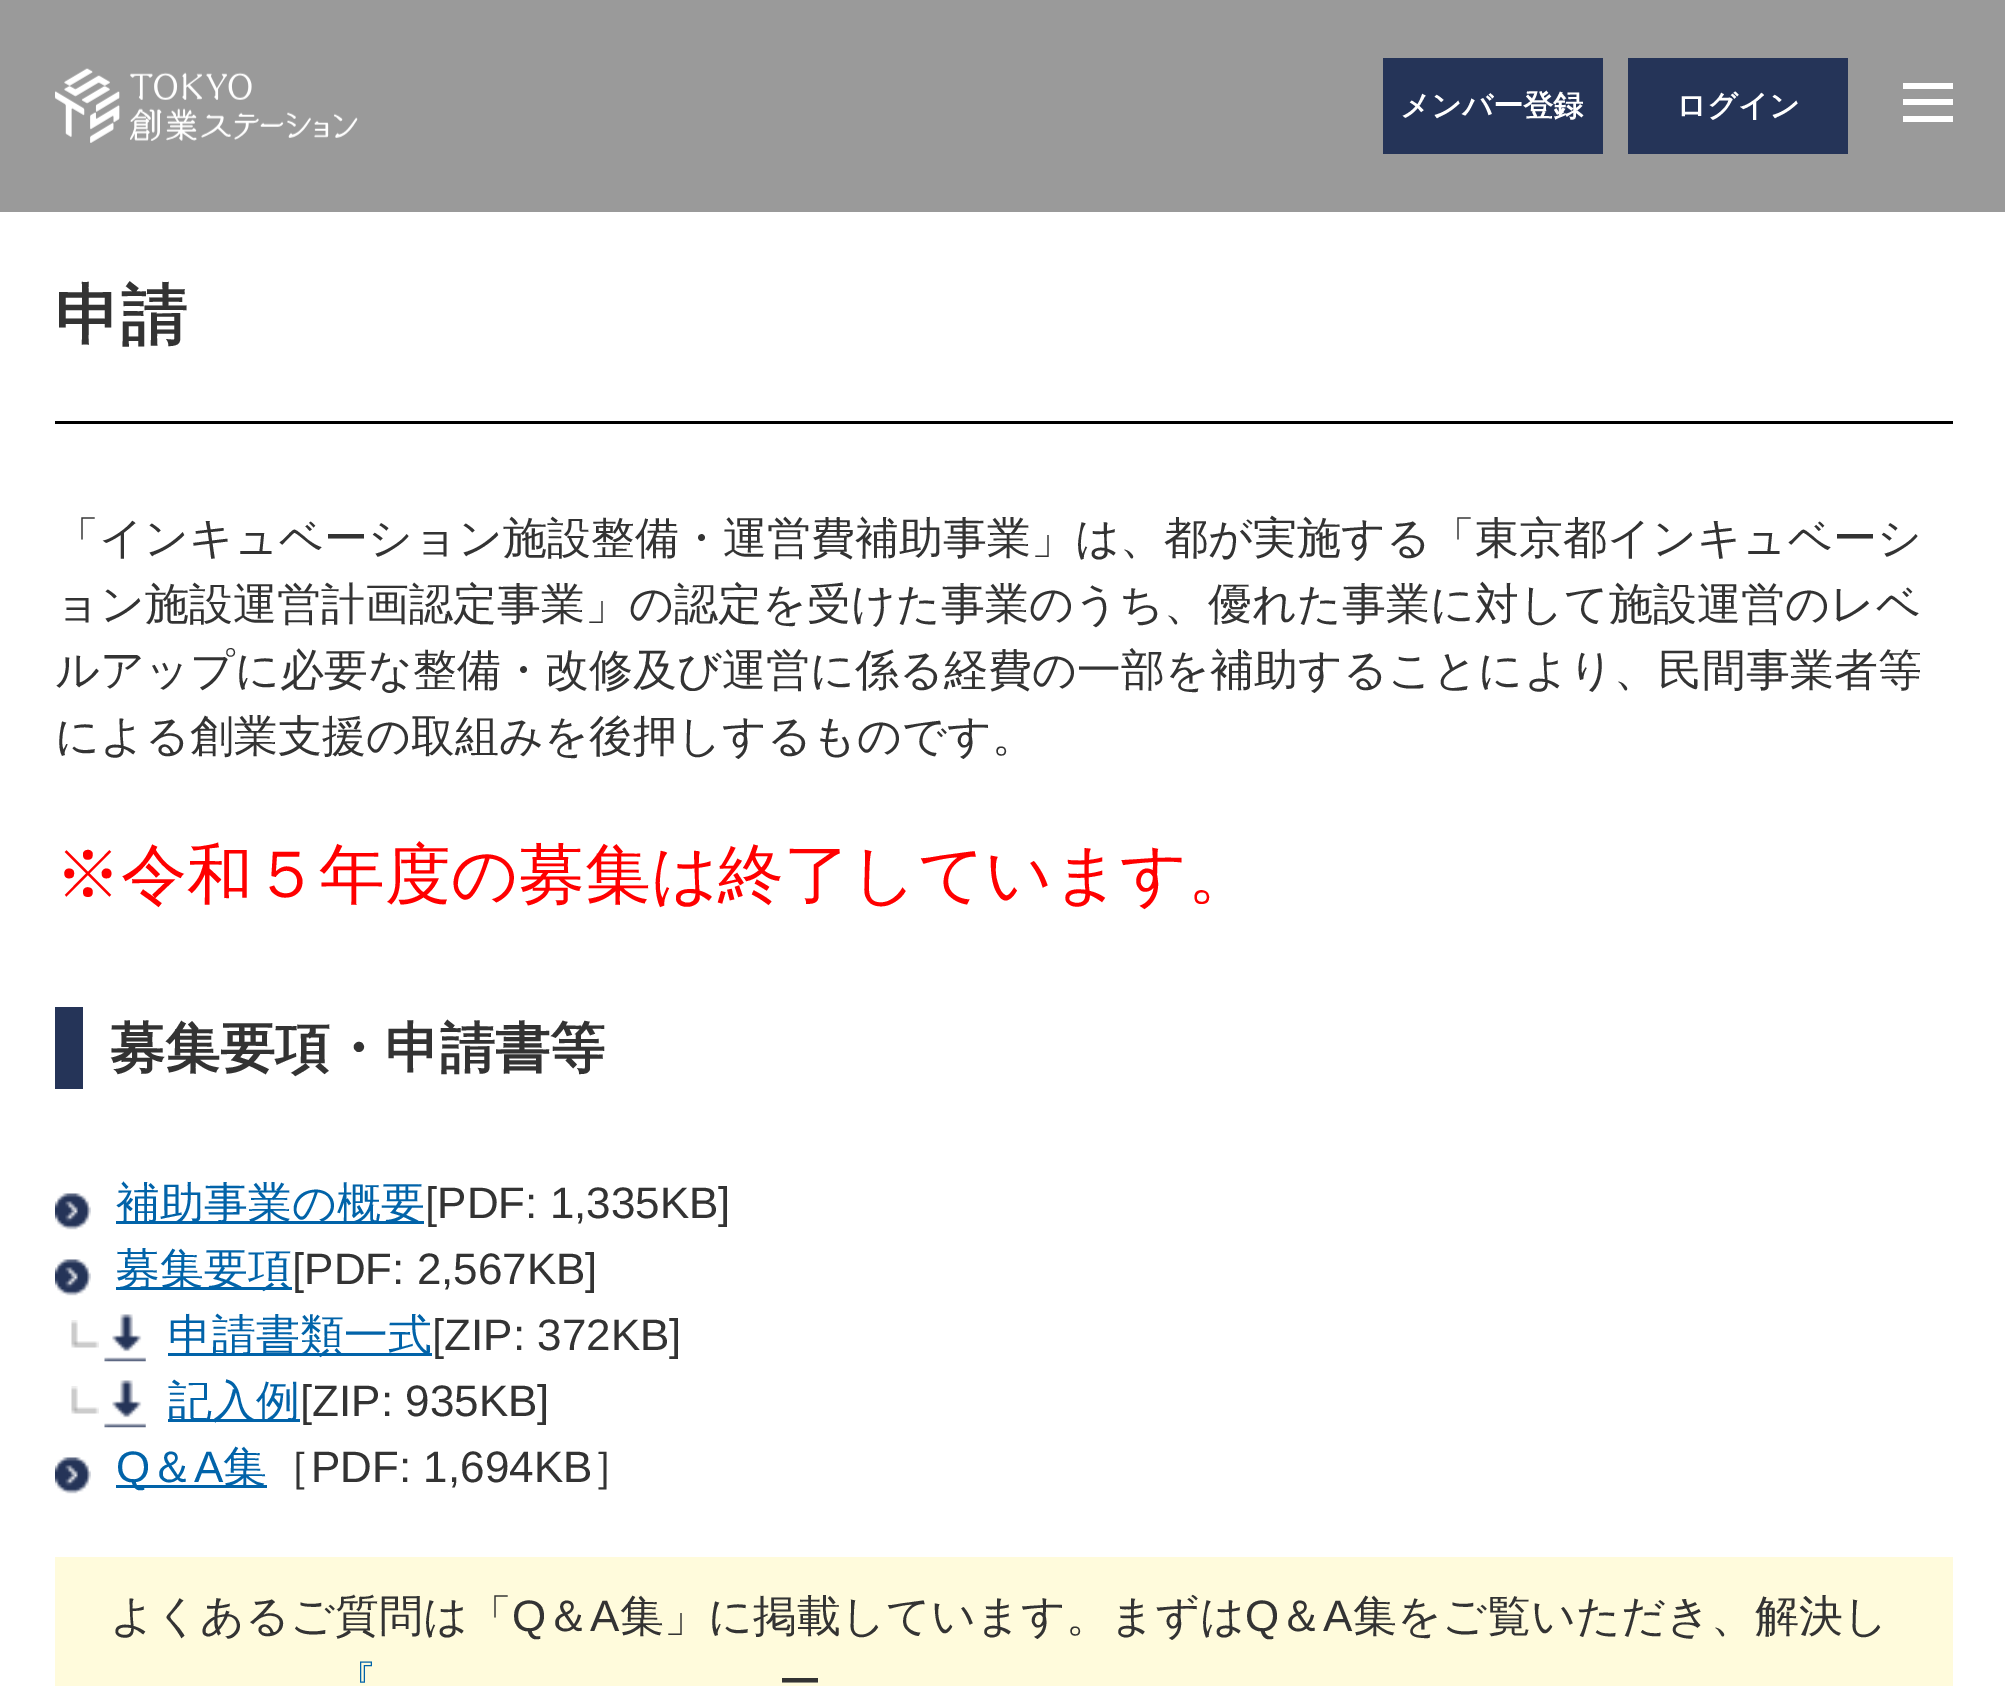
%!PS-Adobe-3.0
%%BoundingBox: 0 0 2005 1686
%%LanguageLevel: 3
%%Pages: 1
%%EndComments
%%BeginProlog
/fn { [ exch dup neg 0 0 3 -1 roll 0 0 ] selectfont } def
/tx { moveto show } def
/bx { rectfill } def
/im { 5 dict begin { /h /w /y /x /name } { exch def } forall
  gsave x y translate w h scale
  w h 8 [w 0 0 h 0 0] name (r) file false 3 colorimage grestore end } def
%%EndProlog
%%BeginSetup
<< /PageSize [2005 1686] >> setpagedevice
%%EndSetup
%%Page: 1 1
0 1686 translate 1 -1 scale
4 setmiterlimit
1 setgray
0 0 2005 1686 bx
0.604 setgray
0 0 2005 212 bx
(image0.raw) 55 68 303 75 im
0.145 0.204 0.345 setrgbcolor
1383 58 220 96 bx
/WenQuanYiZenHei-Bold 30.25 fn
1 setgray
(メンバー登録) 1400 116 tx
0.145 0.204 0.345 setrgbcolor
1628 58 220 96 bx
1 setgray
(ログイン) 1676 116 tx
1903 83 50 6 bx
1903 99 50 6 bx
1903 116 50 6 bx
0 setgray
55 421 1898 3 bx
/WenQuanYiZenHei-Bold 66 fn
0.2 setgray
(申請) 55 338 tx
/WenQuanYiZenHei-Medium 44 fn
(「インキュベーション施設整備・運営費補助事業」は、都が実施する「東京都インキュベーシ) 55 553 tx
(ョン施設運営計画認定事業」の認定を受けた事業のうち、優れた事業に対して施設運営のレベ) 55 619 tx
(ルアップに必要な整備・改修及び運営に係る経費の一部を補助することにより、民間事業者等) 55 685 tx
(による創業支援の取組みを後押しするものです。) 55 751 tx
/WenQuanYiZenHei-Medium 66 fn
1 0 0 setrgbcolor
(※令和５年度の募集は終了しています。) 55 897 tx
0.145 0.204 0.345 setrgbcolor
55 1007 28 82 bx
/WenQuanYiZenHei-Bold 55 fn
0.2 setgray
(募集要項・申請書等) 110 1067 tx
(image1.raw) 55 1193 36 37 im
0.004 0.388 0.663 setrgbcolor
116 1221 308 3 bx
/WenQuanYiZenHei-Medium 44 fn
(補助事業の概要) 116 1218 tx
/LiberationSans-Regular 44 fn
0.2 setgray
([PDF: 1,335KB]) 425 1218 tx
(image1.raw) 55 1259 36 37 im
0.004 0.388 0.663 setrgbcolor
116 1287 176 3 bx
/WenQuanYiZenHei-Medium 44 fn
(募集要項) 116 1284 tx
/LiberationSans-Regular 44 fn
0.2 setgray
([PDF: 2,567KB]) 292 1284 tx
(image2.raw) 71 1320 28 28 im
(image3.raw) 104 1314 42 48 im
0.004 0.388 0.663 setrgbcolor
168 1353 264 3 bx
/WenQuanYiZenHei-Medium 44 fn
(申請書類一式) 168 1350 tx
/LiberationSans-Regular 44 fn
0.2 setgray
([ZIP: 372KB]) 432 1350 tx
(image2.raw) 71 1386 28 28 im
(image3.raw) 104 1380 42 48 im
0.004 0.388 0.663 setrgbcolor
168 1419 132 3 bx
/WenQuanYiZenHei-Medium 44 fn
(記入例) 168 1416 tx
/LiberationSans-Regular 44 fn
0.2 setgray
([ZIP: 935KB]) 300 1416 tx
(image1.raw) 55 1457 36 37 im
0.004 0.388 0.663 setrgbcolor
116 1485 151 3 bx
(Q) 116 1482 tx
/WenQuanYiZenHei-Medium 44 fn
(＆) 150 1482 tx
/LiberationSans-Regular 44 fn
(A) 194 1482 tx
/WenQuanYiZenHei-Medium 44 fn
(集) 223 1482 tx
0.2 setgray
(［) 267 1482 tx
/LiberationSans-Regular 44 fn
(PDF: 1,694KB) 311 1482 tx
/WenQuanYiZenHei-Medium 44 fn
(］) 592 1482 tx
1 0.984 0.863 setrgbcolor
55 1557 1898 129 bx
0.2 setgray
(よくあるご質問は「) 110 1631 tx
/LiberationSans-Regular 44 fn
(Q) 512 1631 tx
/WenQuanYiZenHei-Medium 44 fn
(＆) 546 1631 tx
/LiberationSans-Regular 44 fn
(A) 590 1631 tx
/WenQuanYiZenHei-Medium 44 fn
(集」に掲載しています。まずは) 620 1631 tx
/LiberationSans-Regular 44 fn
(Q) 1245 1631 tx
/WenQuanYiZenHei-Medium 44 fn
(＆) 1279 1631 tx
/LiberationSans-Regular 44 fn
(A) 1323 1631 tx
/WenQuanYiZenHei-Medium 44 fn
(集をご覧いただき、解決し) 1353 1631 tx
0.004 0.388 0.663 setrgbcolor
(『) 333 1697 tx
0.2 setgray
(ー) 778 1697 tx
showpage
%%EOF
